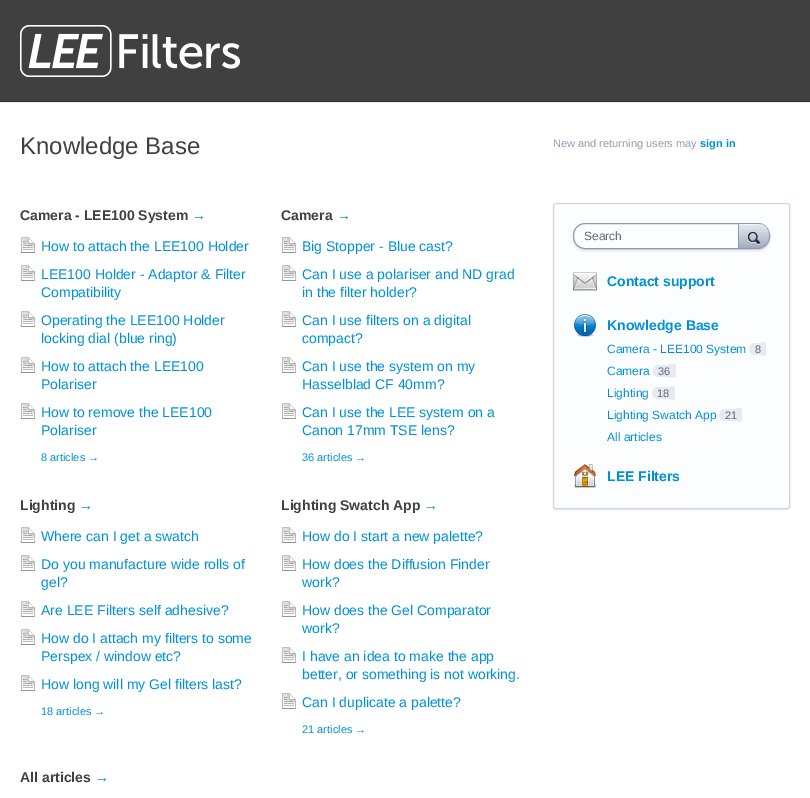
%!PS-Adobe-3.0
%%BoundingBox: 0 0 810 798
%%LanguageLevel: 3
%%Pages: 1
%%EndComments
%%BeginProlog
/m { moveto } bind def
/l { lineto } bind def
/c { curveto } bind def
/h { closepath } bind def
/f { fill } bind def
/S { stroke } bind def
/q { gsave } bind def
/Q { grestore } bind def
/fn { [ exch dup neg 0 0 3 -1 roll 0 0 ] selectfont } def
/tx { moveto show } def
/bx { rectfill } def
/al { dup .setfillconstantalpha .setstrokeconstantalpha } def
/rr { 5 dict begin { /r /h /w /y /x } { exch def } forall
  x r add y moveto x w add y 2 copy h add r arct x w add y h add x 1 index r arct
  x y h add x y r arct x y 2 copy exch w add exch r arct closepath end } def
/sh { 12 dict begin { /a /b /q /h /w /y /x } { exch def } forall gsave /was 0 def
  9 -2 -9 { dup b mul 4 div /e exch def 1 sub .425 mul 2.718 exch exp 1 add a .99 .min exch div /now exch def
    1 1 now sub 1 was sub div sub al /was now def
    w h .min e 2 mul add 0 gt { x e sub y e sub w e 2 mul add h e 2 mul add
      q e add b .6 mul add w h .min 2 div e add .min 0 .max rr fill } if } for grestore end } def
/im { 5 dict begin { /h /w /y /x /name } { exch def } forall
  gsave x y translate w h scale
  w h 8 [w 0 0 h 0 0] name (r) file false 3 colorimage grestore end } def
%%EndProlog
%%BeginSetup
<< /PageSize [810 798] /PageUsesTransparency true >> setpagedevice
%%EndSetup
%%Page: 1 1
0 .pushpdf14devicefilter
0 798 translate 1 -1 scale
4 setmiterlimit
1 setgray
0 0 810 798 bx
0.251 setgray
0 0 810 101 bx
0.188 setgray
0 101 810 1 bx
(image0.raw) 20 25 220 52 im
0.89 0.91 0.949 setrgbcolor
0 102 810 1 bx
/LiberationSans-Regular 24 fn
0.251 setgray
(Knowledge Base) 20 154 tx
/LiberationSans-Bold 14 fn
(Camera - LEE100 System) 20 220 tx
0 0.569 0.831 setrgbcolor
(→) 192 220 tx
(image1.raw) 20 237 16 16 im
/LiberationSans-Regular 14 fn
(How to attach the LEE100 Holder) 41 251 tx
(image1.raw) 20 265 16 16 im
(LEE100 Holder - Adaptor & Filter) 41 279 tx
(Compatibility) 41 297 tx
(image1.raw) 20 311 16 16 im
(Operating the LEE100 Holder) 41 325 tx
(locking dial \(blue ring\)) 41 343 tx
(image1.raw) 20 357 16 16 im
(How to attach the LEE100) 41 371 tx
(Polariser) 41 389 tx
(image1.raw) 20 403 16 16 im
(How to remove the LEE100) 41 417 tx
(Polariser) 41 435 tx
/LiberationSans-Regular 11 fn
(8 articles →) 41 461 tx
/LiberationSans-Bold 14 fn
0.251 setgray
(Camera) 281 220 tx
0 0.569 0.831 setrgbcolor
(→) 337 220 tx
(image1.raw) 281 237 16 16 im
/LiberationSans-Regular 14 fn
(Big Stopper - Blue cast?) 302 251 tx
(image1.raw) 281 265 16 16 im
(Can I use a polariser and ND grad) 302 279 tx
(in the filter holder?) 302 297 tx
(image1.raw) 281 311 16 16 im
(Can I use filters on a digital) 302 325 tx
(compact?) 302 343 tx
(image1.raw) 281 357 16 16 im
(Can I use the system on my) 302 371 tx
(Hasselblad CF 40mm?) 302 389 tx
(image1.raw) 281 403 16 16 im
(Can I use the LEE system on a) 302 417 tx
(Canon 17mm TSE lens?) 302 435 tx
/LiberationSans-Regular 11 fn
(36 articles →) 302 461 tx
/LiberationSans-Bold 14 fn
0.251 setgray
(Lighting) 20 510 tx
0 0.569 0.831 setrgbcolor
(→) 79 510 tx
(image1.raw) 20 527 16 16 im
/LiberationSans-Regular 14 fn
(Where can I get a swatch) 41 541 tx
(image1.raw) 20 555 16 16 im
(Do you manufacture wide rolls of) 41 569 tx
(gel?) 41 587 tx
(image1.raw) 20 601 16 16 im
(Are LEE Filters self adhesive?) 41 615 tx
(image1.raw) 20 629 16 16 im
(How do I attach my filters to some) 41 643 tx
(Perspex / window etc?) 41 661 tx
(image1.raw) 20 675 16 16 im
(How long will my Gel filters last?) 41 689 tx
/LiberationSans-Regular 11 fn
(18 articles →) 41 715 tx
/LiberationSans-Bold 14 fn
0.251 setgray
(Lighting Swatch App) 281 510 tx
0 0.569 0.831 setrgbcolor
(→) 424 510 tx
(image1.raw) 281 527 16 16 im
/LiberationSans-Regular 14 fn
(How do I start a new palette?) 302 541 tx
(image1.raw) 281 555 16 16 im
(How does the Diffusion Finder) 302 569 tx
(work?) 302 587 tx
(image1.raw) 281 601 16 16 im
(How does the Gel Comparator) 302 615 tx
(work?) 302 633 tx
(image1.raw) 281 647 16 16 im
(I have an idea to make the app) 302 661 tx
(better, or something is not working.) 302 679 tx
(image1.raw) 281 693 16 16 im
(Can I duplicate a palette?) 302 707 tx
/LiberationSans-Regular 11 fn
(21 articles →) 302 733 tx
/LiberationSans-Bold 14 fn
0.251 setgray
(All articles) 20 782 tx
0 0.569 0.831 setrgbcolor
(→) 95 782 tx
/LiberationSans-Regular 11 fn
0.561 0.608 0.702 setrgbcolor
(New and returning users may) 553 147 tx
/LiberationSans-Bold 11 fn
0 0.569 0.831 setrgbcolor
(sign in) 700 147 tx
0 setgray
553 204 237 306 3 0.5 0.1 sh
0.988 0.992 1 setrgbcolor
553.5 203.5 236 305 2.5 rr q f Q
0.812 0.843 0.902 setrgbcolor
S
0 setgray
573 225 197 26 12 1 0.1 sh
0.988 0.992 1 setrgbcolor
573.5 223.5 196 25 11.5 rr q f Q
0.561 0.608 0.702 setrgbcolor
S
/LiberationSans-Regular 12 fn
0.38 0.412 0.451 setrgbcolor
(Search) 584 240 tx
q
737 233 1 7 rectclip
0 setgray
738 224 32 25 12 1 0.1 sh
Q
q 739 224 m 758 224 l 764 224 769 229 769 235 c 769 236 l 769 242.5 764 248 758 248 c 739 248 l h clip newpath
<< /ShadingType 2 /ColorSpace /DeviceRGB /Coords [739 224 739 248] /Extend [true true] /Function << /FunctionType 2 /Domain [0 1] /C0 [0.902 0.918 0.949] /C1 [0.635 0.675 0.749] /N 1 >> >> shfill Q
0.5 al
1 setgray
739 224 m 739 225 l 758 225 l 764 225 769 230 769 236 c 769 229.5 765 224 758 224 c h f
1 al
0.639 0.694 0.8 setrgbcolor
758 224 m 761 224 764 225 766 227 c 764 225.5 761 224 758 224 c h f
0.561 0.608 0.702 setrgbcolor
769 236 m 769 242.5 765 248 758 248 c 764 248 769 242.5 769 236 c h 766 227 m 767.5 229 769 232 769 235 c 769 232 768 229 766 227 c h eofill
738 224 1 24 bx
(image2.raw) 748 232 12 13 im
(image3.raw) 573 272 24 19 im
/LiberationSans-Bold 14 fn
0 0.569 0.831 setrgbcolor
(Contact support) 607 286 tx
(image4.raw) 574 314 22 23 im
(Knowledge Base) 607 330 tx
/LiberationSans-Regular 12 fn
(Camera - LEE100 System) 607 353 tx
0.906 0.918 0.949 setrgbcolor
755 343 m 761 343 l 761 355 l 755 355 l 751.5 355 749 352.5 749 349 c 749 345.5 751.5 343 755 343 c h f
/LiberationSans-Regular 11 fn
0.38 0.412 0.451 setrgbcolor
(8) 755 353 tx
0.906 0.918 0.949 setrgbcolor
761 342 m 763.5 342 l 765 342 766 343 766 344.5 c 766 353.5 l 766 355 765 356 763.5 356 c 761 356 l h f
/LiberationSans-Regular 12 fn
0 0.569 0.831 setrgbcolor
(Camera) 607 375 tx
0.906 0.918 0.949 setrgbcolor
659 365 m 670 365 l 670 377 l 659 377 l 655.5 377 653 374.5 653 371 c 653 367.5 655.5 365 659 365 c h f
/LiberationSans-Regular 11 fn
0.38 0.412 0.451 setrgbcolor
(36) 658 375 tx
0.906 0.918 0.949 setrgbcolor
670 364 m 673 364 l 674.5 364 676 365.5 676 367 c 676 375 l 676 376.5 674.5 378 673 378 c 670 378 l h f
/LiberationSans-Regular 12 fn
0 0.569 0.831 setrgbcolor
(Lighting) 607 397 tx
0.906 0.918 0.949 setrgbcolor
658 387 m 670 387 l 670 399 l 658 399 l 654.5 399 652 396.5 652 393 c 652 389.5 654.5 387 658 387 c h f
/LiberationSans-Regular 11 fn
0.38 0.412 0.451 setrgbcolor
(18) 657 397 tx
0.906 0.918 0.949 setrgbcolor
670 386 m 672.5 386 l 674 386 675 387 675 388.5 c 675 397.5 l 675 399 674 400 672.5 400 c 670 400 l h f
/LiberationSans-Regular 12 fn
0 0.569 0.831 setrgbcolor
(Lighting Swatch App) 607 419 tx
0.906 0.918 0.949 setrgbcolor
725 409 m 737 409 l 737 421 l 725 421 l 721.5 421 719 418.5 719 415 c 719 411.5 721.5 409 725 409 c h f
/LiberationSans-Regular 11 fn
0.38 0.412 0.451 setrgbcolor
(21) 725 419 tx
0.906 0.918 0.949 setrgbcolor
737 408 m 739.5 408 l 741 408 742 409 742 410.5 c 742 419.5 l 742 421 741 422 739.5 422 c 737 422 l h f
/LiberationSans-Regular 12 fn
0 0.569 0.831 setrgbcolor
(All articles) 607 441 tx
(image5.raw) 574 464 23 24 im
/LiberationSans-Bold 14 fn
(LEE Filters) 607 481 tx
.poppdf14devicefilter showpage
%%EOF
